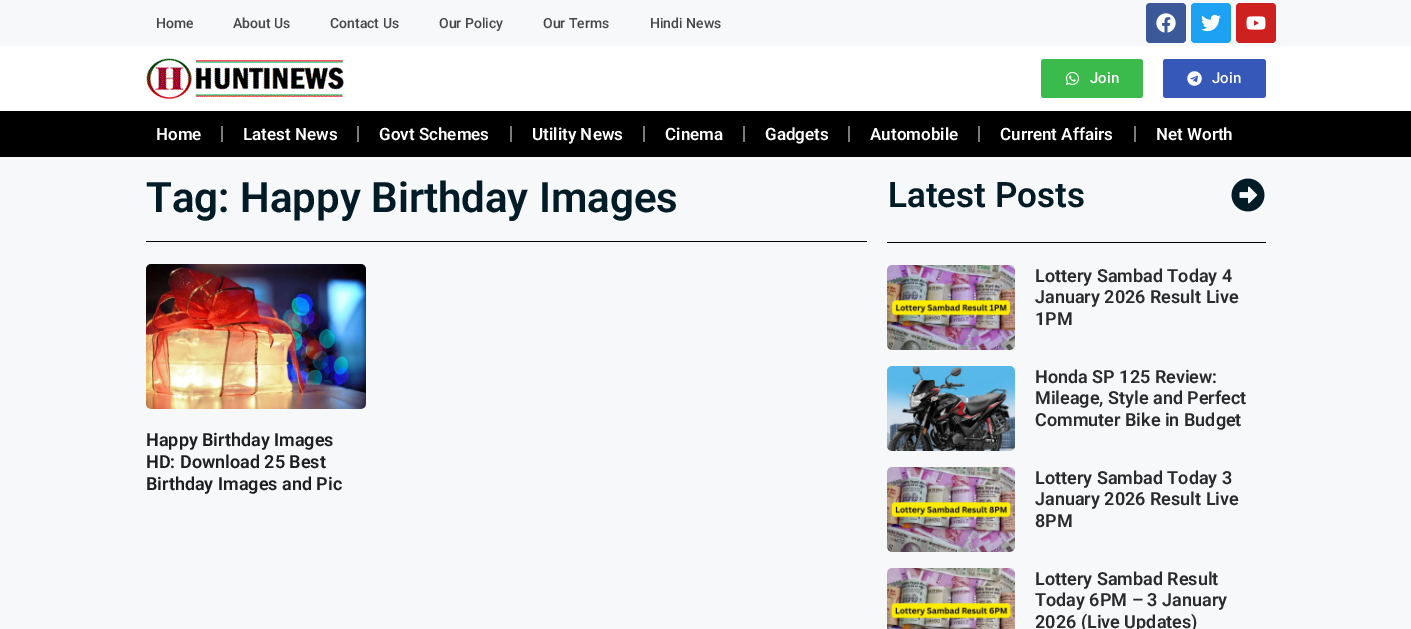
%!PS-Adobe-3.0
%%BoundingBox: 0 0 1411 629
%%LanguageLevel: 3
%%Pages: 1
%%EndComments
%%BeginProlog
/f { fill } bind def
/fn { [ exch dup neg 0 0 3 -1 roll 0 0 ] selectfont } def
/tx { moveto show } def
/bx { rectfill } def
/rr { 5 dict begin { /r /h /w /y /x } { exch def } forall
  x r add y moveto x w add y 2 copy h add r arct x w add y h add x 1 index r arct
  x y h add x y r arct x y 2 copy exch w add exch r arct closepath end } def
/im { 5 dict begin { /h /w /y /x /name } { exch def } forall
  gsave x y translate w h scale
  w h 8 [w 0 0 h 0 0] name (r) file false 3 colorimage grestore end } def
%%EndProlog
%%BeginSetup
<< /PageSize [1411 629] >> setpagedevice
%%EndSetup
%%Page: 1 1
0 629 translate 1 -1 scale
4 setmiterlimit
0.969 0.973 0.976 setrgbcolor
0 0 1411 629 bx
/Roboto-Medium 14 fn
0.278 setgray
(Home) 156 28 tx
(About Us) 233 28 tx
(Contact Us) 330 28 tx
(Our Policy) 439 28 tx
(Our Terms) 543 28 tx
(Hindi News) 650 28 tx
0.231 0.349 0.596 setrgbcolor
1146 3 40 40 4 rr f
(image0.raw) 1156 13 20 20 im
0.114 0.631 0.949 setrgbcolor
1191 3 40 40 4 rr f
(image1.raw) 1201 14 20 18 im
0.804 0.125 0.122 setrgbcolor
1236 3 40 40 4 rr f
(image2.raw) 1246 16 20 14 im
1 setgray
0 46 1411 65 bx
(image3.raw) 146 58 198 41 im
0.227 0.733 0.298 setrgbcolor
1041 59 102 39 3 rr f
(image4.raw) 1066 71 14 14 im
/Roboto-Medium 15 fn
1 setgray
(Join) 1090 83 tx
0.212 0.345 0.725 setrgbcolor
1163 59 103 39 3 rr f
(image5.raw) 1187 71 15 15 im
1 setgray
(Join) 1212 83 tx
0 setgray
0 111 1411 46 bx
/Roboto-SemiBold 17 fn
1 setgray
(Home) 156 140 tx
0.478 setgray
221 126 2 16 bx
1 setgray
(Latest News) 243 140 tx
0.478 setgray
357 126 2 16 bx
1 setgray
(Govt Schemes) 379 140 tx
0.478 setgray
510 126 2 16 bx
1 setgray
(Utility News) 532 140 tx
0.478 setgray
643 126 2 16 bx
1 setgray
(Cinema) 665 140 tx
0.478 setgray
743 126 2 16 bx
1 setgray
(Gadgets) 765 140 tx
0.478 setgray
848 126 2 16 bx
1 setgray
(Automobile) 870 140 tx
0.478 setgray
978 126 2 16 bx
1 setgray
(Current Affairs) 1000 140 tx
0.478 setgray
1134 126 2 16 bx
1 setgray
(Net Worth) 1156 140 tx
/Roboto-SemiBold 42 fn
0.004 0.11 0.153 setrgbcolor
(Tag: Happy Birthday Images) 146 212 tx
0 setgray
146 241 721 1 bx
(image6.raw) 146 264 220 145 im
/Roboto-SemiBold 18 fn
0.118 0.122 0.129 setrgbcolor
(Happy Birthday Images) 146 446 tx
(HD: Download 25 Best) 146 468 tx
(Birthday Images and Pic) 146 490 tx
/Roboto-SemiBold 35 fn
0.004 0.11 0.153 setrgbcolor
(Latest Posts) 888 207 tx
(image7.raw) 1231 178 34 34 im
0 setgray
887 242 379 1 bx
(image8.raw) 887 265 128 85 im
/Roboto-SemiBold 18 fn
0.161 0.169 0.173 setrgbcolor
(Lottery Sambad Today 4) 1035 282 tx
(January 2026 Result Live) 1035 303 tx
(1PM) 1035 325 tx
(image9.raw) 887 366 128 85 im
(Honda SP 125 Review:) 1035 383 tx
(Mileage, Style and Perfect) 1035 404 tx
(Commuter Bike in Budget) 1035 426 tx
(image10.raw) 887 467 128 85 im
(Lottery Sambad Today 3) 1035 484 tx
(January 2026 Result Live) 1035 505 tx
(8PM) 1035 527 tx
(image11.raw) 887 568 128 61 im
(Lottery Sambad Result) 1035 585 tx
(Today 6PM – 3 January) 1035 606 tx
(2026 \(Live Updates\)) 1035 628 tx
showpage
%%EOF
